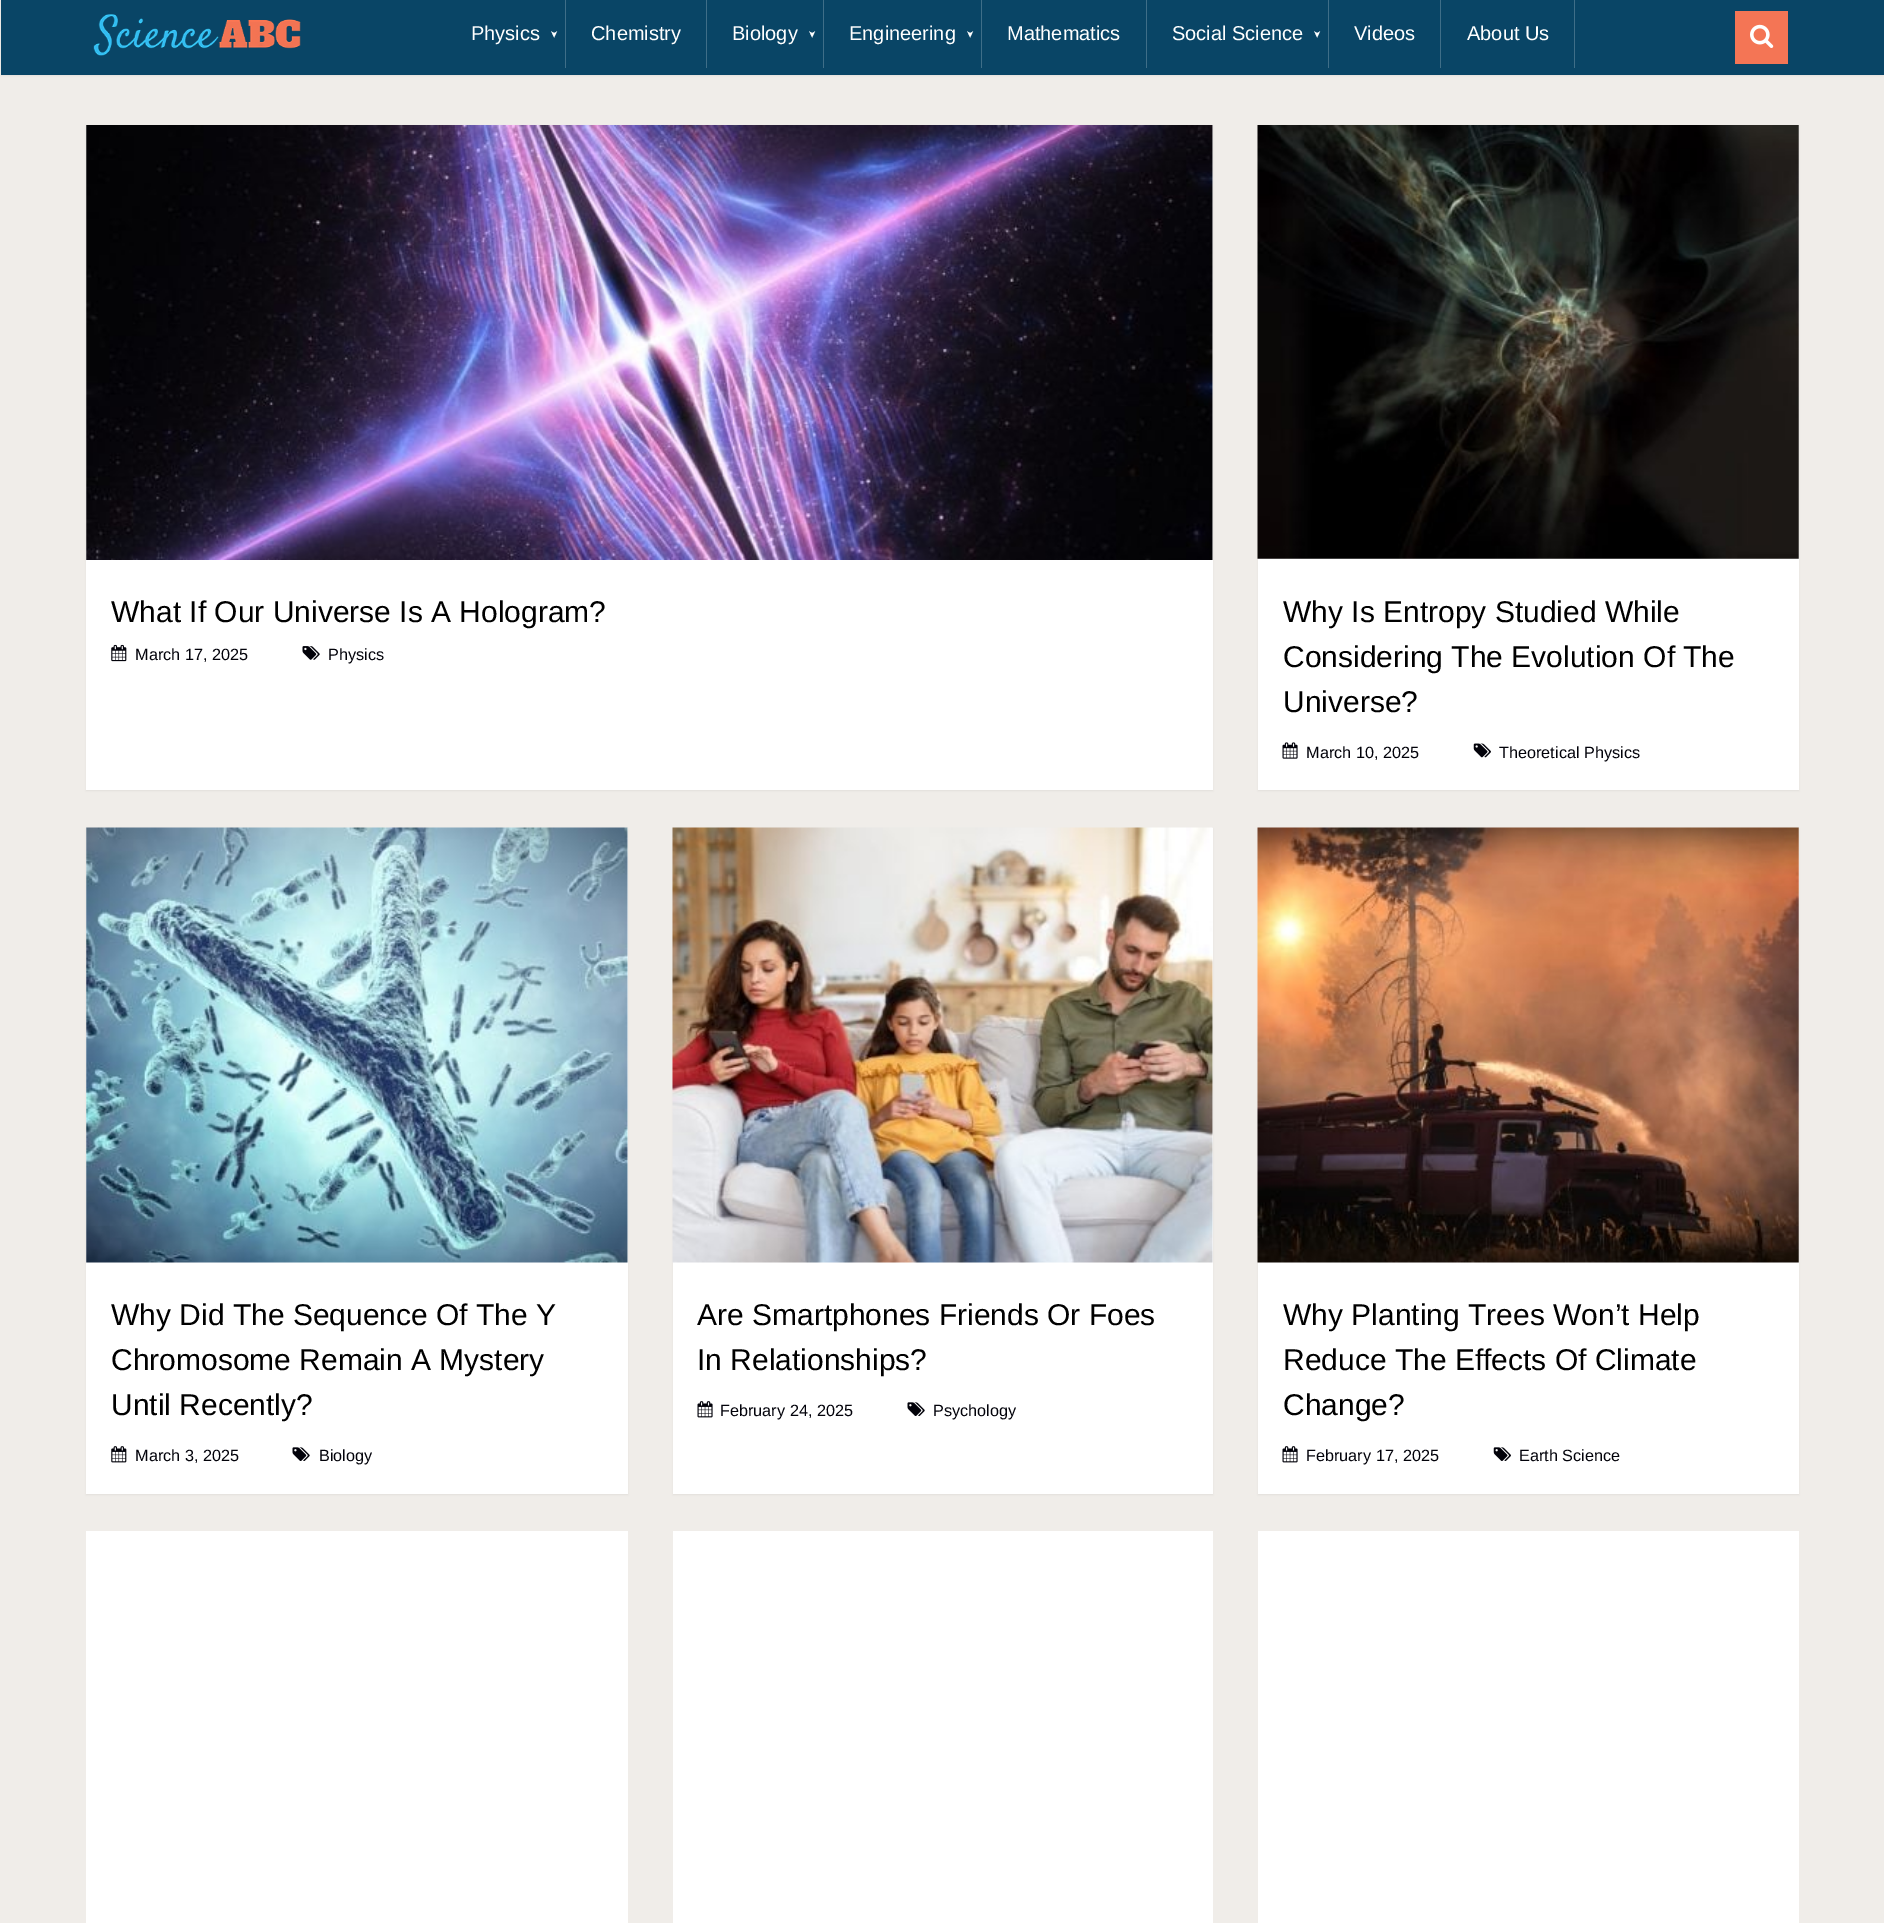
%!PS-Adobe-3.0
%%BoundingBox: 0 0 1884 1923
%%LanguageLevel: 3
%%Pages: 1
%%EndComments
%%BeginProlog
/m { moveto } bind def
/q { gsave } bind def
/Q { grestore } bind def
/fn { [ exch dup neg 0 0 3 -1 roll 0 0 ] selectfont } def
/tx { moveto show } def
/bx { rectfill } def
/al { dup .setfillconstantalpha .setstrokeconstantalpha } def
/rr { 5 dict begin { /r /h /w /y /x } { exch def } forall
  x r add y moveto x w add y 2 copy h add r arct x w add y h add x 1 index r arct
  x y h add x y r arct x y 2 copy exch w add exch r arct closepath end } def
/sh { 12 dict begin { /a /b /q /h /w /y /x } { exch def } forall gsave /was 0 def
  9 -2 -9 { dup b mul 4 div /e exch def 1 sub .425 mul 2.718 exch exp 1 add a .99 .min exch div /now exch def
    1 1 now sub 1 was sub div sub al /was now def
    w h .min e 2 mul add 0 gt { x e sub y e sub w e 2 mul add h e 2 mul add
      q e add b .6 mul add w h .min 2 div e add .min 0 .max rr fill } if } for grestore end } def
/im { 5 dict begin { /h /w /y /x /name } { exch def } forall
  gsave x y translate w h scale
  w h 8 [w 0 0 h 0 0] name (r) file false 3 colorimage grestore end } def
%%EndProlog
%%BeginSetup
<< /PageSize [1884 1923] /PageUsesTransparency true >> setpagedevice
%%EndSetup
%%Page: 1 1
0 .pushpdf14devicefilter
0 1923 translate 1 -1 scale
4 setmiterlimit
0.941 0.929 0.914 setrgbcolor
0 0 1884 1923 bx
0 setgray
1 1 1883 75 0 1 0.05 sh
0.035 0.271 0.4 setrgbcolor
1 0 1883 75 bx
(image0.raw) 93 14 208 42 im
0.247 0.431 0.533 setrgbcolor
565 0 1 68 bx
/LiberationSans-Regular 20 fn
1 setgray
(Physics) 471 40 tx
/DejaVuSans-Regular 10 fn
q 551 30 translate 90 rotate 0 0 m (➤) show Q
0.247 0.431 0.533 setrgbcolor
706 0 1 68 bx
/LiberationSans-Regular 20 fn
1 setgray
(Chemistry) 591 40 tx
0.247 0.431 0.533 setrgbcolor
823 0 1 68 bx
1 setgray
(Biology) 732 40 tx
/DejaVuSans-Regular 10 fn
q 809 30 translate 90 rotate 0 0 m (➤) show Q
0.247 0.431 0.533 setrgbcolor
981 0 1 68 bx
/LiberationSans-Regular 20 fn
1 setgray
(Engineering) 849 40 tx
/DejaVuSans-Regular 10 fn
q 967 30 translate 90 rotate 0 0 m (➤) show Q
0.247 0.431 0.533 setrgbcolor
1146 0 1 68 bx
/LiberationSans-Regular 20 fn
1 setgray
(Mathematics) 1007 40 tx
0.247 0.431 0.533 setrgbcolor
1328 0 1 68 bx
1 setgray
(Social Science) 1172 40 tx
/DejaVuSans-Regular 10 fn
q 1314 30 translate 90 rotate 0 0 m (➤) show Q
0.247 0.431 0.533 setrgbcolor
1440 0 1 68 bx
/LiberationSans-Regular 20 fn
1 setgray
(Videos) 1354 40 tx
0.247 0.431 0.533 setrgbcolor
1574 0 1 68 bx
1 setgray
(About Us) 1467 40 tx
0.957 0.459 0.333 setrgbcolor
1735 11 53 53 bx
(image1.raw) 1750 24 24 24 im
0 setgray
86 126 1127 665 0 1 0.05 sh
1 setgray
86 125 1127 665 bx
(image2.raw) 86 125 1127 435 im
/LiberationSans-Regular 30 fn
0 setgray
(What If Our Universe Is A Hologram?) 111 622 tx
(image3.raw) 111 644 16 18 im
/LiberationSans-Regular 16.25 fn
0.008 0.008 0.039 setrgbcolor
(March 17, 2025) 135 660 tx
(image4.raw) 302 646 18 14 im
(Physics) 328 660 tx
0 setgray
1258 126 541 665 0 1 0.05 sh
1 setgray
1258 125 541 665 bx
(image5.raw) 1257 125 542 434 im
/LiberationSans-Regular 30 fn
0 setgray
(Why Is Entropy Studied While) 1283 622 tx
(Considering The Evolution Of The) 1283 667 tx
(Universe?) 1283 712 tx
(image6.raw) 1282 742 16 17 im
/LiberationSans-Regular 16.25 fn
0.008 0.008 0.039 setrgbcolor
(March 10, 2025) 1306 758 tx
(image7.raw) 1473 743 18 15 im
(Theoretical Physics) 1499 758 tx
0 setgray
86 829 542 666 0 1 0.05 sh
1 setgray
86 828 542 666 bx
(image8.raw) 86 827 542 436 im
/LiberationSans-Regular 30 fn
0 setgray
(Why Did The Sequence Of The Y) 111 1325 tx
(Chromosome Remain A Mystery) 111 1370 tx
(Until Recently?) 111 1415 tx
(image9.raw) 111 1446 16 17 im
/LiberationSans-Regular 16.25 fn
0.008 0.008 0.039 setrgbcolor
(March 3, 2025) 135 1461 tx
(image10.raw) 292 1447 18 14 im
(Biology) 319 1461 tx
0 setgray
673 829 540 666 0 1 0.05 sh
1 setgray
673 828 540 666 bx
(image11.raw) 672 827 541 436 im
/LiberationSans-Regular 30 fn
0 setgray
(Are Smartphones Friends Or Foes) 697 1325 tx
(In Relationships?) 697 1370 tx
(image12.raw) 697 1401 16 17 im
/LiberationSans-Regular 16.25 fn
0.008 0.008 0.039 setrgbcolor
(February 24, 2025) 720 1416 tx
(image10.raw) 907 1402 18 14 im
(Psychology) 933 1416 tx
0 setgray
1258 829 541 666 0 1 0.05 sh
1 setgray
1258 828 541 666 bx
(image13.raw) 1257 827 542 436 im
/LiberationSans-Regular 30 fn
0 setgray
(Why Planting Trees Won’t Help) 1283 1325 tx
(Reduce The Effects Of Climate) 1283 1370 tx
(Change?) 1283 1415 tx
(image12.raw) 1282 1446 16 17 im
/LiberationSans-Regular 16.25 fn
0.008 0.008 0.039 setrgbcolor
(February 17, 2025) 1306 1461 tx
(image14.raw) 1493 1447 18 14 im
(Earth Science) 1519 1461 tx
1 setgray
86 1531 542 392 bx
673 1531 540 392 bx
1258 1531 541 392 bx
.poppdf14devicefilter showpage
%%EOF
